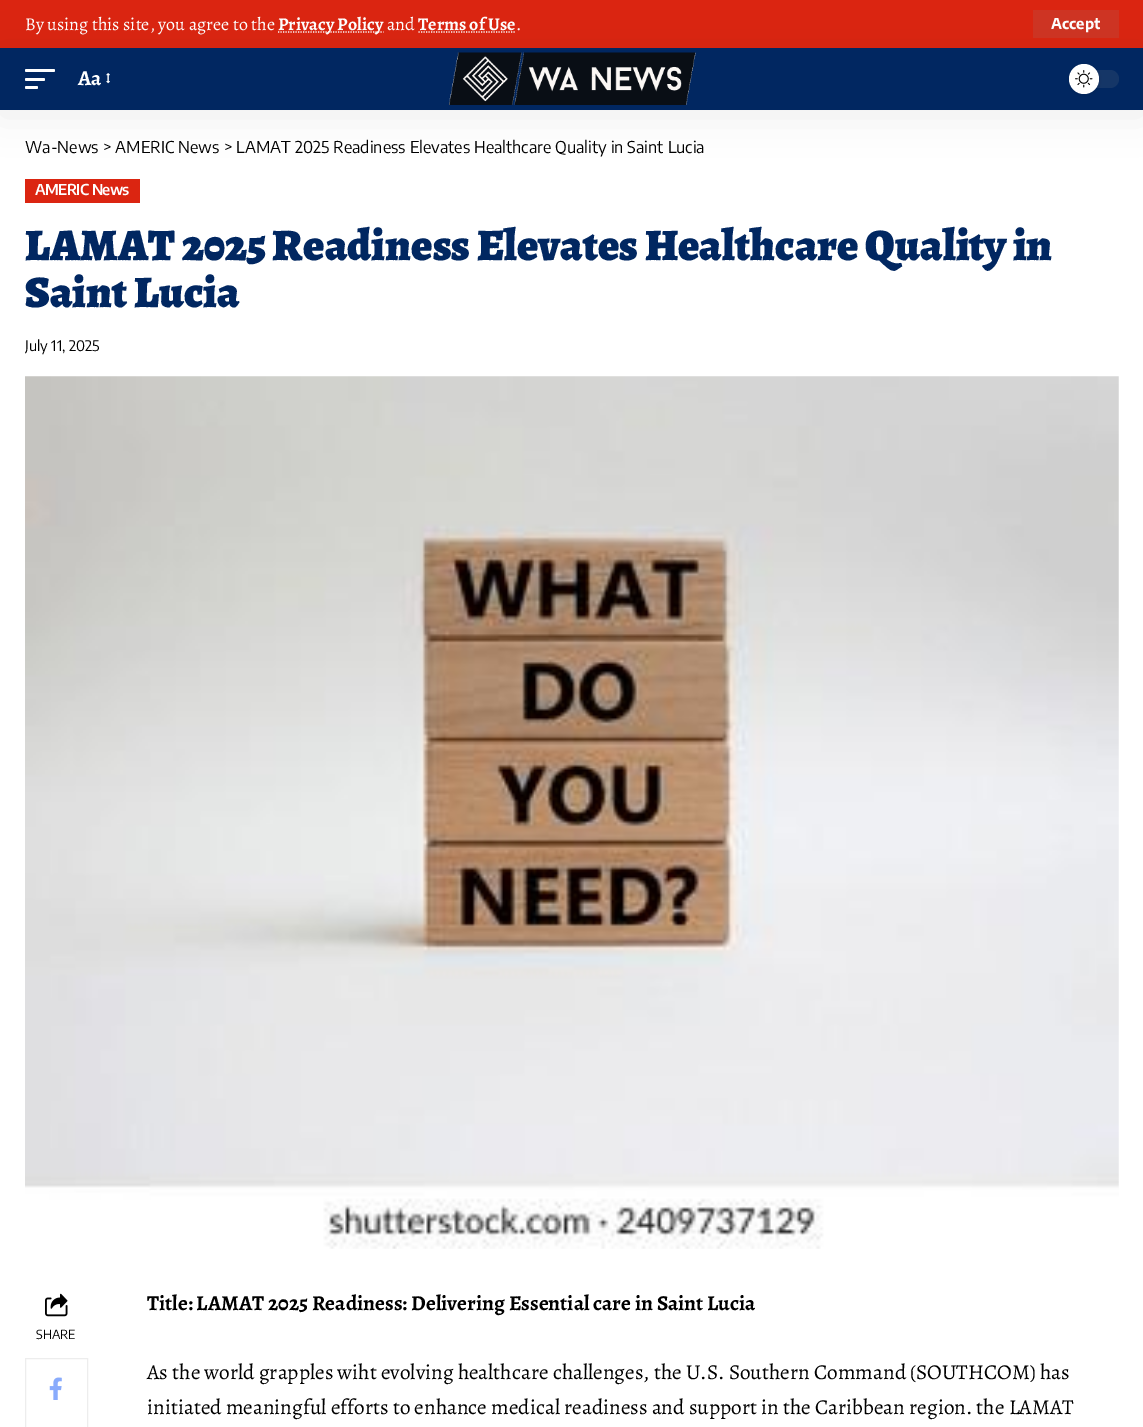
%!PS-Adobe-3.0
%%BoundingBox: 0 0 1143 1427
%%LanguageLevel: 3
%%Pages: 1
%%EndComments
%%BeginProlog
/m { moveto } bind def
/l { lineto } bind def
/f { fill } bind def
/S { stroke } bind def
/w { setlinewidth } bind def
/fn { [ exch dup neg 0 0 3 -1 roll 0 0 ] selectfont } def
/tx { moveto show } def
/bx { rectfill } def
/al { dup .setfillconstantalpha .setstrokeconstantalpha } def
/ci { newpath 0 360 arc closepath } def
/rr { 5 dict begin { /r /h /w /y /x } { exch def } forall
  x r add y moveto x w add y 2 copy h add r arct x w add y h add x 1 index r arct
  x y h add x y r arct x y 2 copy exch w add exch r arct closepath end } def
/sh { 12 dict begin { /a /b /q /h /w /y /x } { exch def } forall gsave /was 0 def
  9 -2 -9 { dup b mul 4 div /e exch def 1 sub .425 mul 2.718 exch exp 1 add a .99 .min exch div /now exch def
    1 1 now sub 1 was sub div sub al /was now def
    w h .min e 2 mul add 0 gt { x e sub y e sub w e 2 mul add h e 2 mul add
      q e add b .6 mul add w h .min 2 div e add .min 0 .max rr fill } if } for grestore end } def
/im { 5 dict begin { /h /w /y /x /name } { exch def } forall
  gsave x y translate w h scale
  w h 8 [w 0 0 h 0 0] name (r) file false 3 colorimage grestore end } def
%%EndProlog
%%BeginSetup
<< /PageSize [1143 1427] /PageUsesTransparency true >> setpagedevice
%%EndSetup
%%Page: 1 1
0 .pushpdf14devicefilter
0 1427 translate 1 -1 scale
4 setmiterlimit
1 setgray
0 0 1143 1427 bx
0.859 0.145 0.067 setrgbcolor
0 0 1143 48 bx
/Alegreya-Regular 18 fn
1 setgray
(By using this site, you agree to the) 25 30 tx
1.2 w
[1.25 1.25] 0 setdash
278 32 m 383.5 32 l S
/Alegreya-Bold 18 fn
(Privacy Policy) 278 30 tx
/Alegreya-Regular 18 fn
(and) 387 30 tx
/Alegreya-Bold 18 fn
(Terms of Use) 418 30 tx
418.5 32 m 516 32 l S
/Alegreya-Regular 18 fn
(.) 516 30 tx
0.812 0.204 0.137 setrgbcolor
1033 10 86 28 bx
/EncodeSansCondensed-Bold 15 fn
1 setgray
(Accept) 1051 29 tx
0 setgray
0 53 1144 62 0 19 0.07 sh
0.004 0.153 0.38 setrgbcolor
0 48 1143 62 bx
1 setgray
25 69 30 3 1.5 rr f
25 78 20 3 1.5 rr f
25 86 13 3 1.5 rr f
/Alegreya-Bold 21.25 fn
(Aa) 78 85 tx
(image0.raw) 106 73 4 11 im
(image1.raw) 449 52 247 53 im
0.082 0.212 0.404 setrgbcolor
1069 70 50 18 9 rr f
0 setgray
1069 65 30 30 15 2.5 0.12 sh
1 setgray
1084 79 15 ci f
(image2.raw) 1075 70 18 18 im
/EncodeSansCondensed-Regular 16.25 fn
0 setgray
(Wa-News > AMERIC News > LAMAT 2025 Readiness Elevates Healthcare Quality in Saint Lucia) 25 153 tx
0.859 0.145 0.067 setrgbcolor
25 179 115 24 bx
/EncodeSansCondensed-SemiBold 15 fn
1 setgray
35 195 m -0.6 0 (AMERIC News) ashow
/Alegreya-Black 45 fn
0.004 0.153 0.38 setrgbcolor
(LAMAT 2025 Readiness Elevates Healthcare Quality in) 25 260 tx
(Saint Lucia) 25 307 tx
/EncodeSansCondensed-Regular 14.5 fn
0 setgray
(July 11, 2025) 25 351 tx
(image3.raw) 25 376 1094 873 im
(image4.raw) 45 1293 23 24 im
/EncodeSansCondensed-Regular 12.5 fn
(SHARE) 36 1339 tx
0.929 setgray
1 w
[] 0 setdash
25.5 1358.5 62 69 rectstroke
(image5.raw) 49 1377 13 23 im
/Alegreya-Bold 21.25 fn
0 setgray
(Title: LAMAT 2025 Readiness: Delivering Essential care in Saint Lucia) 147 1310 tx
/Alegreya-Regular 21.25 fn
(As the world grapples wiht evolving healthcare challenges, the U.S. Southern Command \(SOUTHCOM\) has) 147 1379 tx
(initiated meaningful efforts to enhance medical readiness and support in the Caribbean region. the LAMAT) 147 1414 tx
.poppdf14devicefilter showpage
%%EOF
